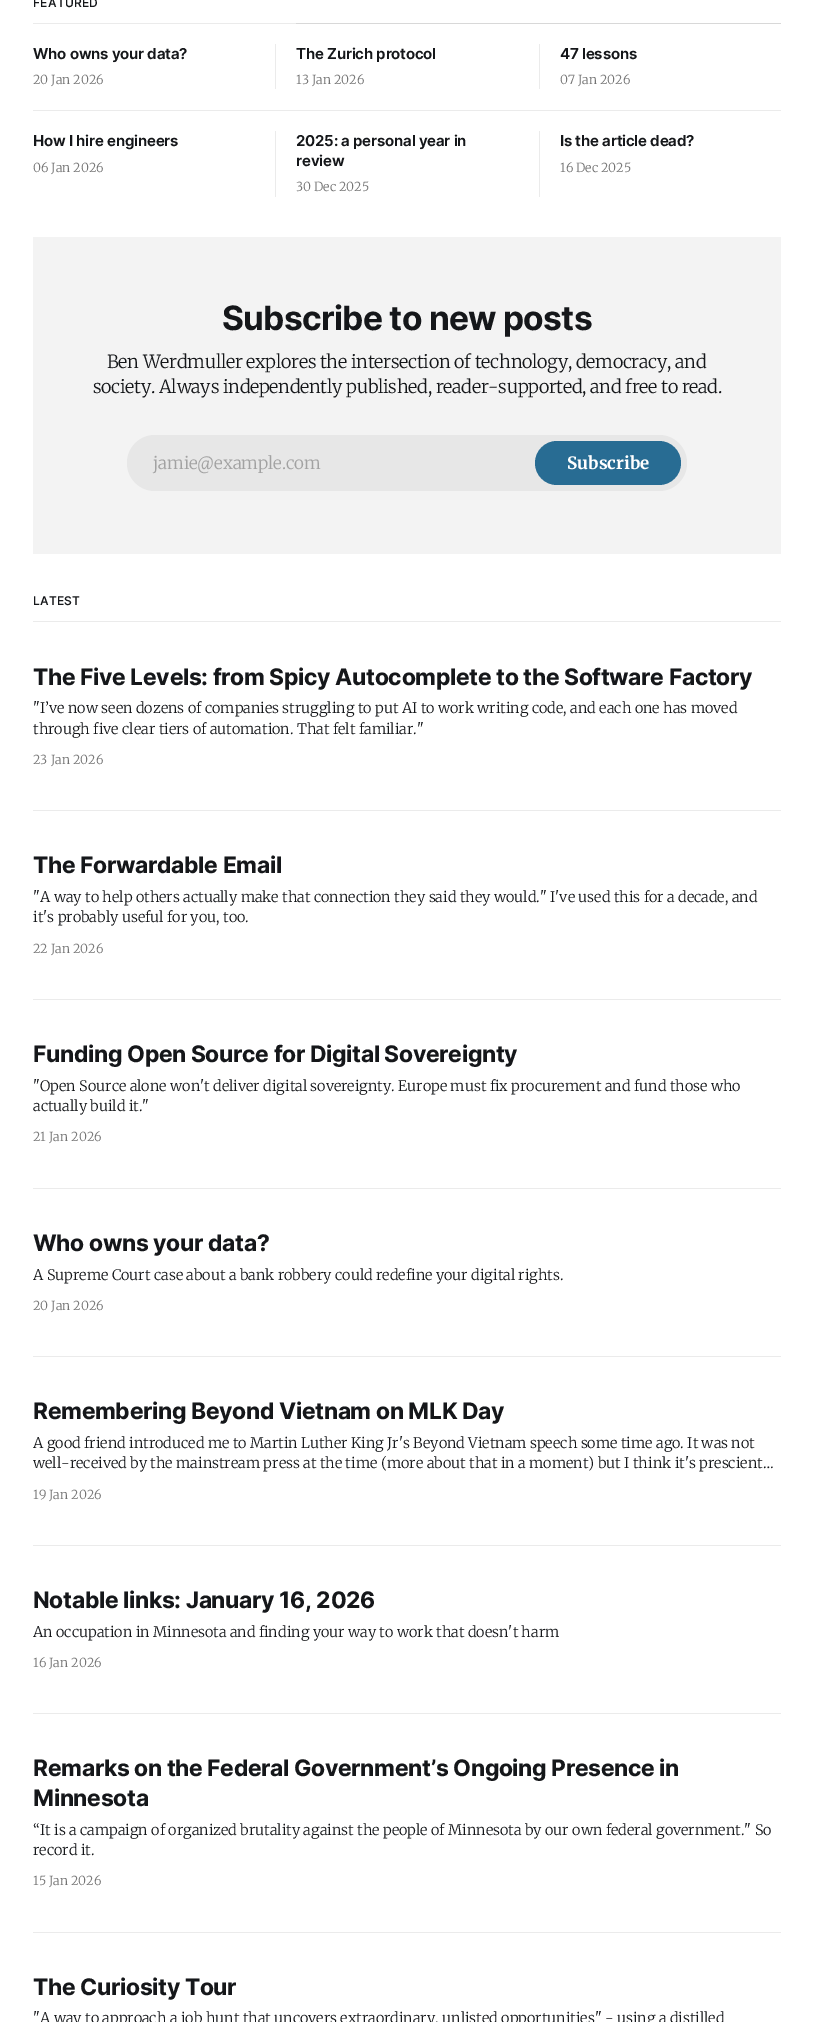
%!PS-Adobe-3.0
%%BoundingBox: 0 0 814 2022
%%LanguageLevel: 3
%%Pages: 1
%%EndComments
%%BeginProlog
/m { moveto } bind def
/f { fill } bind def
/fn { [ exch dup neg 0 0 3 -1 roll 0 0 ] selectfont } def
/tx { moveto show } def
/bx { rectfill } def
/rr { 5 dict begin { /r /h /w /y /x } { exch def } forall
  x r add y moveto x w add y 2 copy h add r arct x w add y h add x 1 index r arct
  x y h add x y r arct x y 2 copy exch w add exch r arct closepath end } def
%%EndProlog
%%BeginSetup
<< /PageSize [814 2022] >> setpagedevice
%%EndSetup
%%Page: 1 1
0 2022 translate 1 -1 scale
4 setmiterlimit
1 setgray
0 0 814 2022 bx
0.922 setgray
33 23 263 1 bx
/Inter-Medium 12 fn
0.082 0.09 0.102 setrgbcolor
33 7 m 0.25 0 (FEATURED) ashow
/Inter-SemiBold 15 fn
33 59 m -0.2 0 (Who owns your data?) ashow
/Merriweather-Light 12.5 fn
0.451 setgray
(20 Jan 2026) 33 84 tx
0.847 setgray
296 23 485 1 bx
0.922 setgray
275 44 1 45 bx
/Inter-SemiBold 15 fn
0.082 0.09 0.102 setrgbcolor
296 59 m -0.2 0 (The Zurich protocol) ashow
/Merriweather-Light 12.5 fn
0.451 setgray
(13 Jan 2026) 296 84 tx
0.922 setgray
539 44 1 45 bx
/Inter-SemiBold 15 fn
0.082 0.09 0.102 setrgbcolor
560 59 m -0.2 0 (47 lessons) ashow
/Merriweather-Light 12.5 fn
0.451 setgray
(07 Jan 2026) 560 84 tx
0.922 setgray
33 110 748 1 bx
/Inter-SemiBold 15 fn
0.082 0.09 0.102 setrgbcolor
33 146 m -0.2 0 (How I hire engineers) ashow
/Merriweather-Light 12.5 fn
0.451 setgray
(06 Jan 2026) 33 172 tx
0.922 setgray
275 131 1 66 bx
/Inter-SemiBold 15 fn
0.082 0.09 0.102 setrgbcolor
296 146 m -0.2 0 (2025: a personal year in) ashow
296 166 m -0.2 0 (review) ashow
/Merriweather-Light 12.5 fn
0.451 setgray
(30 Dec 2025) 296 191 tx
0.922 setgray
539 131 1 66 bx
/Inter-SemiBold 15 fn
0.082 0.09 0.102 setrgbcolor
560 146 m -0.2 0 (Is the article dead?) ashow
/Merriweather-Light 12.5 fn
0.451 setgray
(16 Dec 2025) 560 172 tx
0.953 setgray
33 237 748 317 bx
/Inter-Bold 33.5 fn
0.082 0.09 0.102 setrgbcolor
222 330 m -0.7 0 (Subscribe to new posts) ashow
/Merriweather-Light 18 fn
107 368 m -0.27 0 (Ben Werdmuller explores the intersection of technology, democracy, and) ashow
93 393 m -0.27 0 (society. Always independently published, reader-supported, and free to read.) ashow
0.906 setgray
127 435 560 56 28 rr f
/Merriweather-Light 17 fn
0.635 setgray
153 469 m -0.1 0 (jamie@example.com) ashow
0.157 0.424 0.576 setrgbcolor
535 441 146 44 22 rr f
/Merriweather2-Light 17 fn
1 setgray
(Subscribe) 567 469 tx
0.922 setgray
33 621 748 1 bx
/Inter-Medium 12 fn
0.082 0.09 0.102 setrgbcolor
33 605 m 0.25 0 (LATEST) ashow
/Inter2-Bold 22.8 fn
33 685 m -0.32 0 (The Five Levels: from Spicy Autocomplete to the Software Factory) ashow
/Merriweather-Light 14.5 fn
("I’ve now seen dozens of companies struggling to put AI to work writing code, and each one has moved) 33 713 tx
(through five clear tiers of automation. That felt familiar.") 33 734 tx
/Merriweather-Light 12.5 fn
0.451 setgray
(23 Jan 2026) 33 764 tx
0.922 setgray
33 810 748 1 bx
/Inter2-Bold 22.8 fn
0.082 0.09 0.102 setrgbcolor
33 873 m -0.32 0 (The Forwardable Email) ashow
/Merriweather-Light 14.5 fn
("A way to help others actually make that connection they said they would." I've used this for a decade, and) 33 902 tx
(it's probably useful for you, too.) 33 922 tx
/Merriweather-Light 12.5 fn
0.451 setgray
(22 Jan 2026) 33 953 tx
0.922 setgray
33 999 748 1 bx
/Inter2-Bold 22.8 fn
0.082 0.09 0.102 setrgbcolor
33 1062 m -0.32 0 (Funding Open Source for Digital Sovereignty) ashow
/Merriweather-Light 14.5 fn
("Open Source alone won't deliver digital sovereignty. Europe must fix procurement and fund those who) 33 1091 tx
(actually build it.") 33 1111 tx
/Merriweather-Light 12.5 fn
0.451 setgray
(21 Jan 2026) 33 1141 tx
0.922 setgray
33 1188 748 1 bx
/Inter2-Bold 22.8 fn
0.082 0.09 0.102 setrgbcolor
33 1251 m -0.32 0 (Who owns your data?) ashow
/Merriweather-Light 14.5 fn
(A Supreme Court case about a bank robbery could redefine your digital rights.) 33 1280 tx
/Merriweather-Light 12.5 fn
0.451 setgray
(20 Jan 2026) 33 1310 tx
0.922 setgray
33 1356 748 1 bx
/Inter2-Bold 22.8 fn
0.082 0.09 0.102 setrgbcolor
33 1419 m -0.32 0 (Remembering Beyond Vietnam on MLK Day) ashow
/Merriweather-Light 14.5 fn
(A good friend introduced me to Martin Luther King Jr's Beyond Vietnam speech some time ago. It was not) 33 1448 tx
(well-received by the mainstream press at the time \(more about that in a moment\) but I think it's prescient…) 33 1468 tx
/Merriweather-Light 12.5 fn
0.451 setgray
(19 Jan 2026) 33 1499 tx
0.922 setgray
33 1545 748 1 bx
/Inter2-Bold 22.8 fn
0.082 0.09 0.102 setrgbcolor
33 1608 m -0.32 0 (Notable links: January 16, 2026) ashow
/Merriweather-Light 14.5 fn
(An occupation in Minnesota and finding your way to work that doesn't harm) 33 1637 tx
/Merriweather-Light 12.5 fn
0.451 setgray
(16 Jan 2026) 33 1667 tx
0.922 setgray
33 1713 748 1 bx
/Inter2-Bold 22.8 fn
0.082 0.09 0.102 setrgbcolor
33 1776 m -0.32 0 (Remarks on the Federal Government’s Ongoing Presence in) ashow
33 1806 m -0.32 0 (Minnesota) ashow
/Merriweather-Light 14.5 fn
(“It is a campaign of organized brutality against the people of Minnesota by our own federal government." So) 33 1835 tx
(record it.) 33 1855 tx
/Merriweather-Light 12.5 fn
0.451 setgray
(15 Jan 2026) 33 1885 tx
0.922 setgray
33 1932 748 1 bx
/Inter2-Bold 22.8 fn
0.082 0.09 0.102 setrgbcolor
33 1995 m -0.32 0 (The Curiosity Tour) ashow
/Merriweather-Light 14.5 fn
("A way to approach a job hunt that uncovers extraordinary, unlisted opportunities" - using a distilled) 33 2023 tx
showpage
%%EOF
